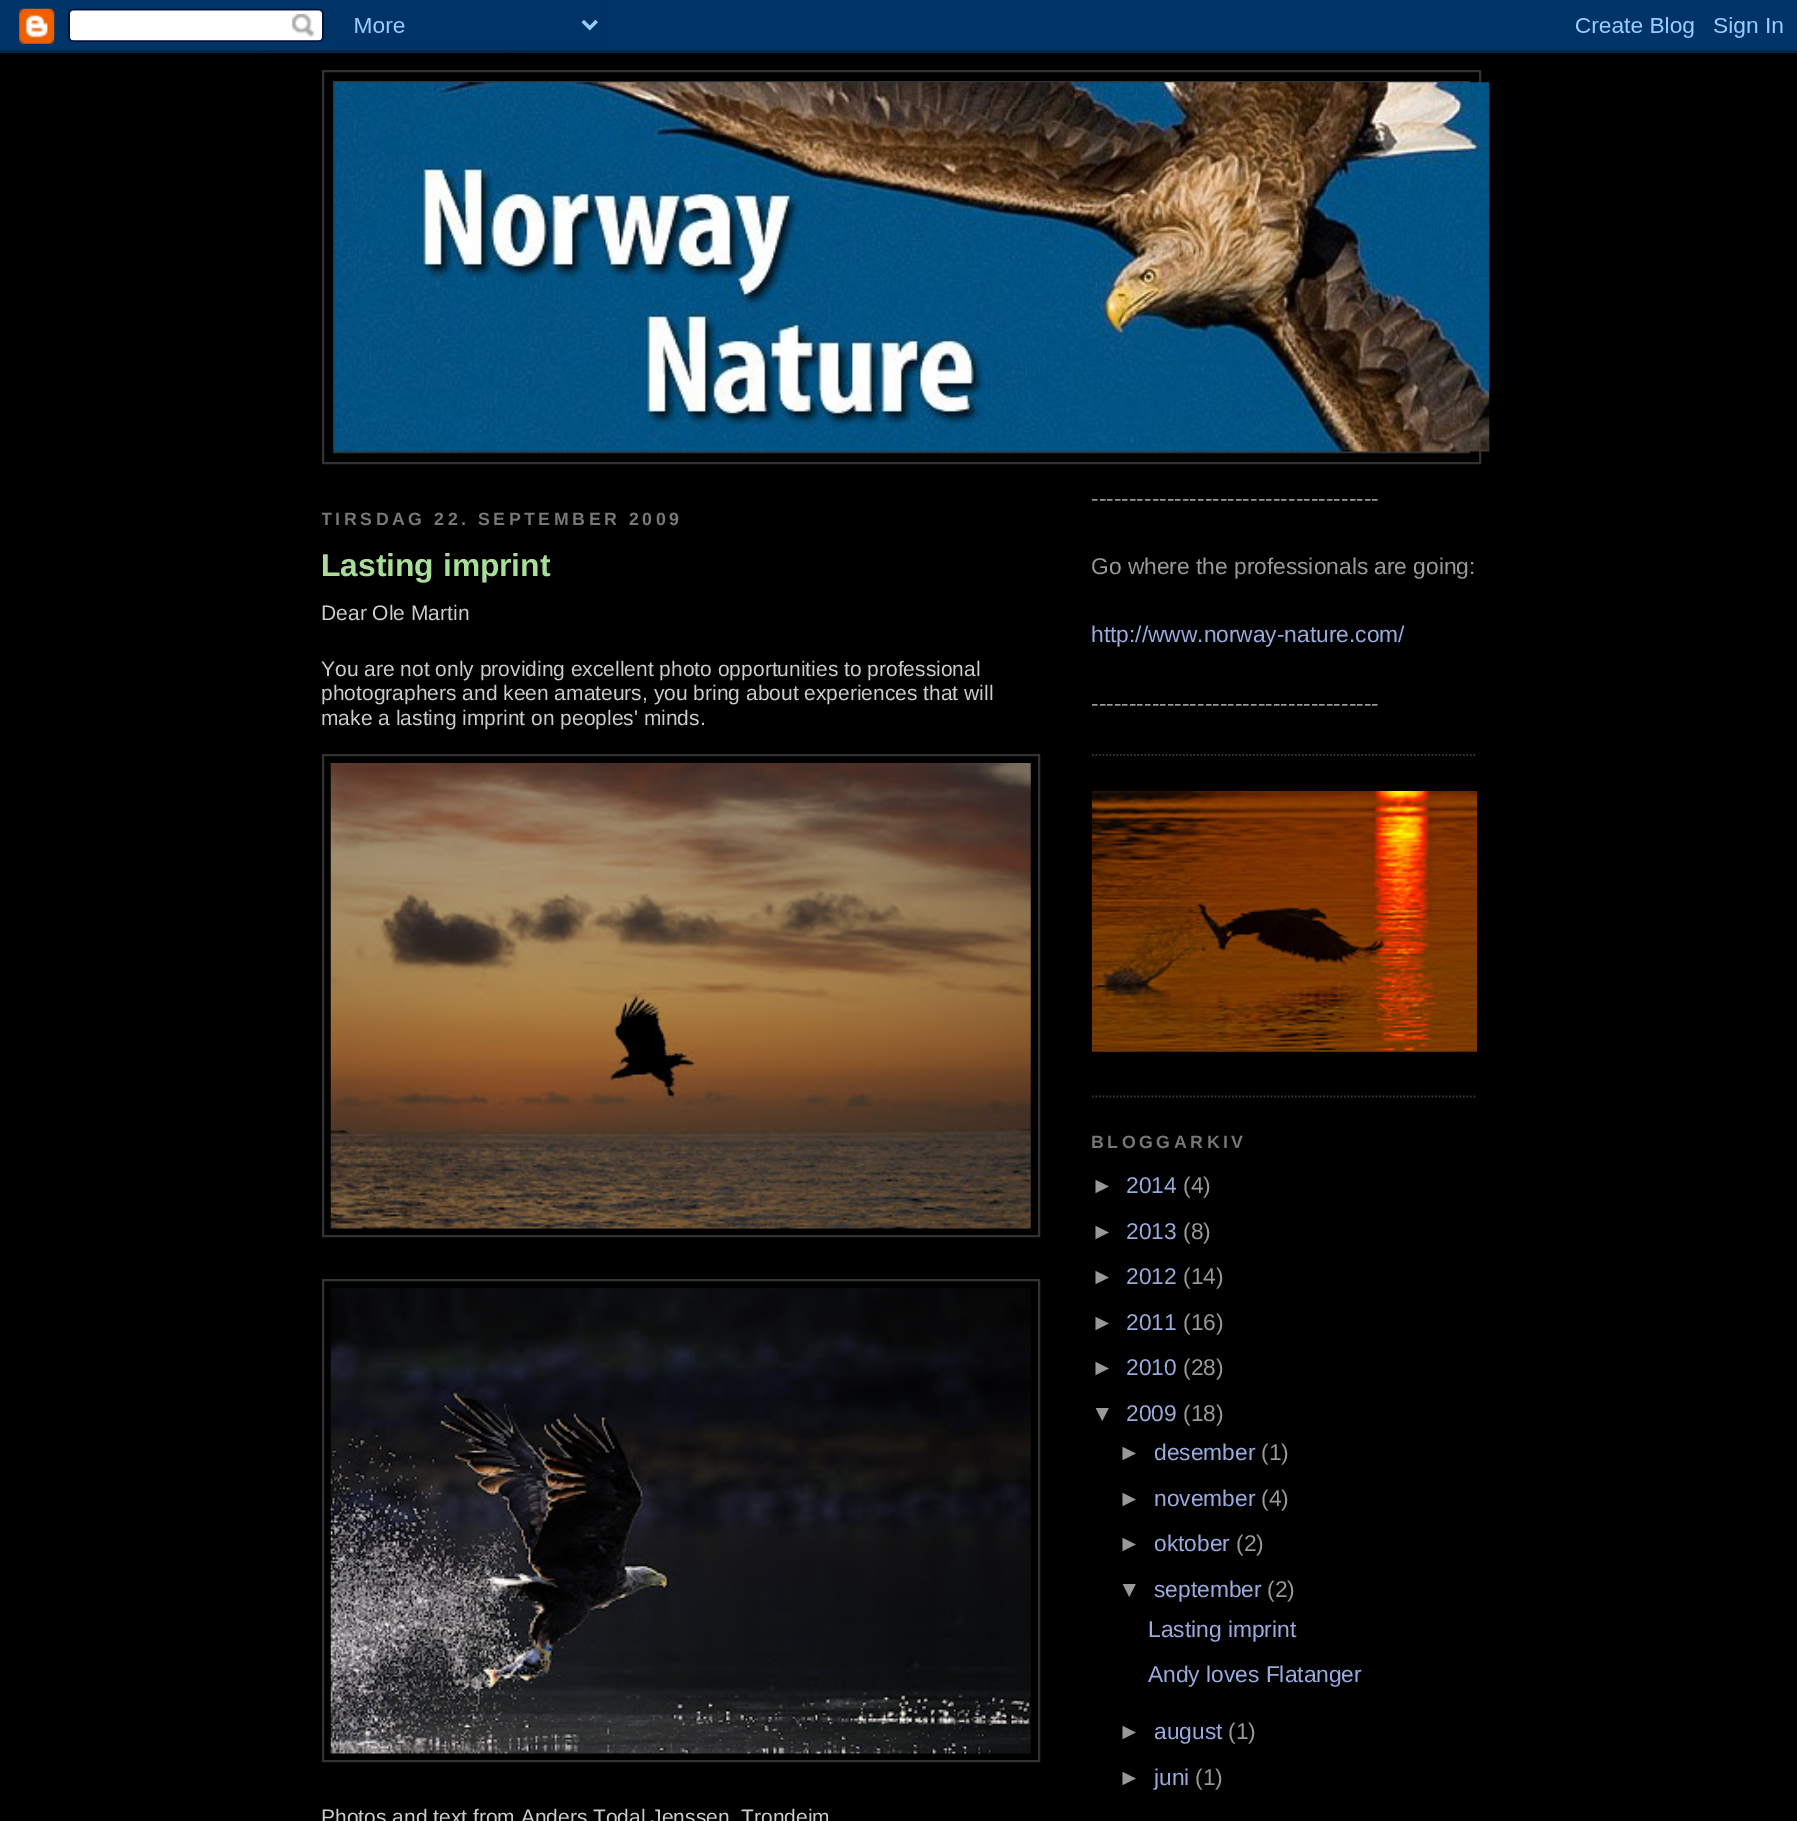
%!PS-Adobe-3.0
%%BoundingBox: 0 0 1797 1821
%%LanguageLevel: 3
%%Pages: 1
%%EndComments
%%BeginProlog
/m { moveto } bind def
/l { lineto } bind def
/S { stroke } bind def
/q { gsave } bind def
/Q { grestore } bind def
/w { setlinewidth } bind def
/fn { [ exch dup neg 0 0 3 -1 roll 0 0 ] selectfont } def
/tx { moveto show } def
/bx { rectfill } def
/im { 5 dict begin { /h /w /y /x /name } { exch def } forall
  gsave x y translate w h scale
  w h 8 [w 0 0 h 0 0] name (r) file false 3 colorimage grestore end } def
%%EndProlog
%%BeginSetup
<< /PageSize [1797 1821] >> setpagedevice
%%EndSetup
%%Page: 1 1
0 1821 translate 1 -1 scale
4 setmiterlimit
0 setgray
0 0 1797 1821 bx
(image0.raw) 0 0 1797 53 im
0.2 setgray
2 w
323 71 1157 392 rectstroke
334 82 1135 370 rectstroke
(image1.raw) 334 82 1156 370 im
q
322 481 718 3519 rectclip
/LiberationSans-Bold 17.75 fn
0.467 setgray
321 525 m 3.55 0 (TIRSDAG 22. SEPTEMBER 2009) ashow
Q
/LiberationSans-Bold 31.75 fn
0.667 0.867 0.6 setrgbcolor
(Lasting imprint) 321 576 tx
/LiberationSans-Regular 21 fn
0.8 setgray
(Dear Ole Martin) 321 620 tx
(You are not only providing excellent photo opportunities to professional) 321 676 tx
(photographers and keen amateurs, you bring about experiences that will) 321 700 tx
(make a lasting imprint on peoples' minds.) 321 725 tx
0.2 setgray
323 755 716 481 rectstroke
(image2.raw) 330 763 701 466 im
323 1280 716 481 rectstroke
(image3.raw) 330 1288 701 466 im
0.8 setgray
(Photos and text from Anders Todal Jenssen, Trondeim) 321 1824 tx
0.2 setgray
1.8 w
[1.75 1.75] 0 setdash
1092 755 m 1477 755 l S
/LiberationSans-Regular 22.75 fn
0.6 setgray
(--------------------------------------) 1091 506 tx
(Go where the professionals are going:) 1091 574 tx
0.6 0.667 0.867 setrgbcolor
(http://www.norway-nature.com/) 1091 642 tx
0.6 setgray
(--------------------------------------) 1091 711 tx
0.2 setgray
1092 1096.5 m 1477 1096.5 l S
(image4.raw) 1092 791 385 261 im
/LiberationSans-Bold 17.75 fn
0.467 setgray
1091 1148 m 3.55 0 (BLOGGARKIV) ashow
/LiberationSans-Regular 22.75 fn
0.6 setgray
(►) 1091 1193 tx
0.6 0.667 0.867 setrgbcolor
(2014) 1126 1193 tx
0.6 setgray
(\(4\)) 1183 1193 tx
(►) 1091 1239 tx
0.6 0.667 0.867 setrgbcolor
(2013) 1126 1239 tx
0.6 setgray
(\(8\)) 1183 1239 tx
(►) 1091 1284 tx
0.6 0.667 0.867 setrgbcolor
(2012) 1126 1284 tx
0.6 setgray
(\(14\)) 1183 1284 tx
(►) 1091 1330 tx
0.6 0.667 0.867 setrgbcolor
(2011) 1126 1330 tx
0.6 setgray
(\(16\)) 1183 1330 tx
(►) 1091 1375 tx
0.6 0.667 0.867 setrgbcolor
(2010) 1126 1375 tx
0.6 setgray
(\(28\)) 1183 1375 tx
(▼) 1091 1421 tx
0.6 0.667 0.867 setrgbcolor
(2009) 1126 1421 tx
0.6 setgray
(\(18\)) 1183 1421 tx
(►) 1118 1460 tx
0.6 0.667 0.867 setrgbcolor
(desember) 1154 1460 tx
0.6 setgray
(\(1\)) 1261 1460 tx
(►) 1118 1506 tx
0.6 0.667 0.867 setrgbcolor
(november) 1154 1506 tx
0.6 setgray
(\(4\)) 1261 1506 tx
(►) 1118 1551 tx
0.6 0.667 0.867 setrgbcolor
(oktober) 1154 1551 tx
0.6 setgray
(\(2\)) 1236 1551 tx
(▼) 1118 1597 tx
0.6 0.667 0.867 setrgbcolor
(september) 1154 1597 tx
0.6 setgray
(\(2\)) 1267 1597 tx
0.6 0.667 0.867 setrgbcolor
(Lasting imprint) 1148 1637 tx
(Andy loves Flatanger) 1148 1682 tx
0.6 setgray
(►) 1118 1739 tx
0.6 0.667 0.867 setrgbcolor
(august) 1154 1739 tx
0.6 setgray
(\(1\)) 1228 1739 tx
(►) 1118 1785 tx
0.6 0.667 0.867 setrgbcolor
(juni) 1154 1785 tx
0.6 setgray
(\(1\)) 1195 1785 tx
showpage
%%EOF
